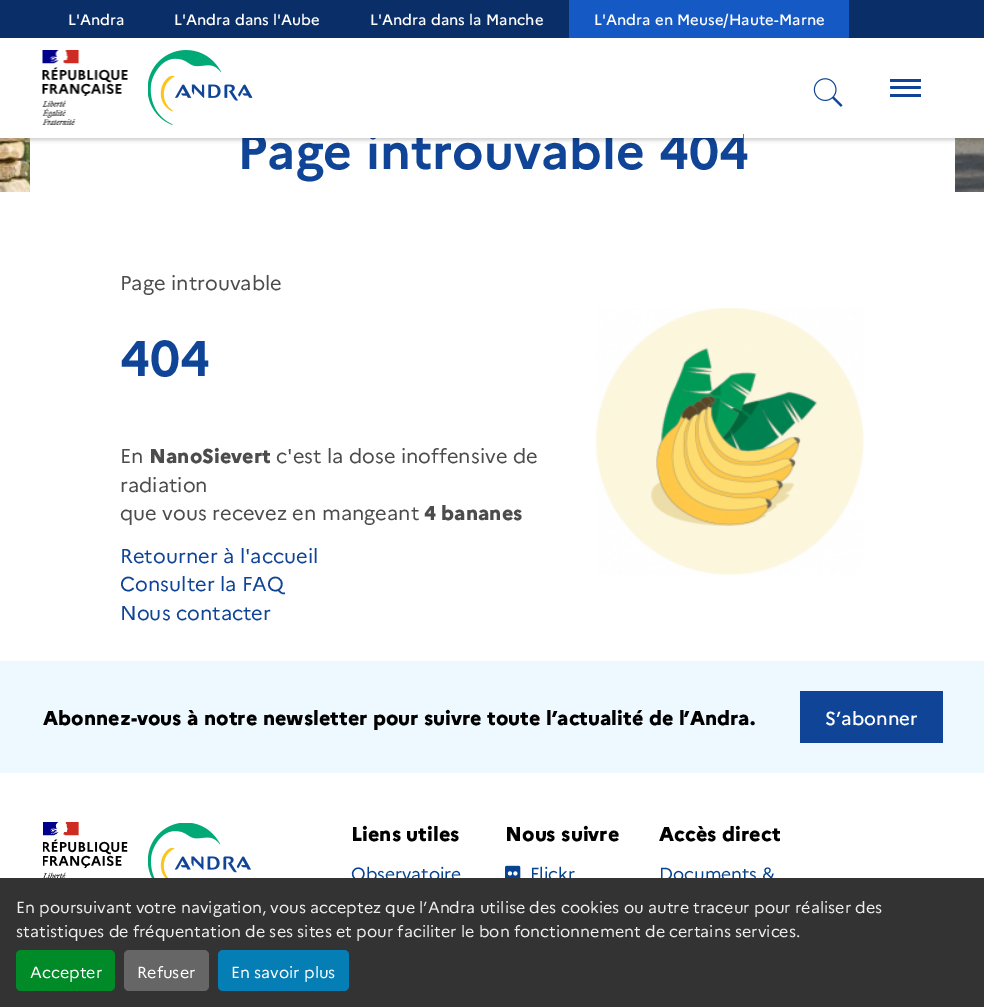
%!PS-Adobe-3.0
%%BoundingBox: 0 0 984 1007
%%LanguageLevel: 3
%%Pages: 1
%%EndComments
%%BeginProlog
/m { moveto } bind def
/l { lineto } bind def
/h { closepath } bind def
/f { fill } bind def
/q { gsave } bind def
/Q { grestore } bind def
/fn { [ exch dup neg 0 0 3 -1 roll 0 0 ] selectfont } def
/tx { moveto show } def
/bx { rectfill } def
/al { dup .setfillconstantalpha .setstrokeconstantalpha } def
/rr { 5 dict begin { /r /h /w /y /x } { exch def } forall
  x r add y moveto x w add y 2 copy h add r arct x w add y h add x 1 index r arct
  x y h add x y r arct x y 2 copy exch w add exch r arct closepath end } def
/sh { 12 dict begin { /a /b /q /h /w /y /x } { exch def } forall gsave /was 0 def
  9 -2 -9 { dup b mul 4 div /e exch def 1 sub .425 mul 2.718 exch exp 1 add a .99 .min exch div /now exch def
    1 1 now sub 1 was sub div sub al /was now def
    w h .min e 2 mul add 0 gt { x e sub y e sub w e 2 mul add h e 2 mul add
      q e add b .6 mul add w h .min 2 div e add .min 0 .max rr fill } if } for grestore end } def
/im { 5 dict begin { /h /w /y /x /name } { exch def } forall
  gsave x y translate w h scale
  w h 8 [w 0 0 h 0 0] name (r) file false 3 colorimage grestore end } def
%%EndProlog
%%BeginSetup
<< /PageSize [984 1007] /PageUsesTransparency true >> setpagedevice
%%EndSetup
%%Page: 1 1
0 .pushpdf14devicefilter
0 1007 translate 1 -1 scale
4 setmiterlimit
1 setgray
0 0 984 1007 bx
(image3.raw) 0 138 984 54 im
30 138 925 54 bx
/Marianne-Bold 50 fn
0.059 0.267 0.588 setrgbcolor
(Page introuvable 404) 237 169 tx
1 setgray
241 131 502 7 bx
0.039 0.184 0.408 setrgbcolor
0 0 984 38 bx
/Marianne-Medium 15 fn
1 setgray
(L'Andra) 68 25 tx
(L'Andra dans l'Aube) 174 25 tx
(L'Andra dans la Manche) 370 25 tx
q
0 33 m 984 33 l 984 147 l 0 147 l h 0 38 m 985 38 l 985 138 l 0 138 l h eoclip newpath
0 setgray
0 40 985 100 0 2 0.2 sh
Q
0.078 0.349 0.769 setrgbcolor
569 0 280 38 bx
1 setgray
(L'Andra en Meuse/Haute-Marne) 594 25 tx
(image0.raw) 42 50 86 75 im
(image1.raw) 148 50 105 75 im
(image2.raw) 813 78 30 29 im
0.059 0.267 0.588 setrgbcolor
890 86 31 3 1.5 rr f
890 79 31 3 bx
890 94 31 3 bx
/Marianne-Regular 20 fn
0.298 setgray
(Page introuvable) 120 290 tx
/Marianne-Bold 50 fn
0.059 0.267 0.588 setrgbcolor
(404) 120 376 tx
(image4.raw) 596 308 268 267 im
/Marianne-Regular 20 fn
0.298 setgray
(En) 120 463 tx
/Marianne-ExtraBold 20 fn
(NanoSievert) 149 463 tx
/Marianne-Regular 20 fn
(c'est la dose inoffensive de) 276 463 tx
(radiation) 120 492 tx
(que vous recevez en mangeant) 120 520 tx
/Marianne-ExtraBold 20 fn
(4 bananes) 424 520 tx
/Marianne-Regular 20 fn
0.059 0.267 0.588 setrgbcolor
(Retourner à l'accueil) 120 563 tx
(Consulter la FAQ) 120 591 tx
(Nous contacter) 120 620 tx
0.929 0.973 1 setrgbcolor
0 661 984 112 bx
/Marianne-ExtraBold 20 fn
0 setgray
(Abonnez-vous à notre newsletter pour suivre toute l’actualité de l’Andra.) 43 725 tx
0.059 0.267 0.588 setrgbcolor
800 691 143 52 bx
/Marianne-Medium 18.75 fn
1 setgray
(S’abonner) 825 725 tx
(image5.raw) 43 822 85 56 im
(image6.raw) 148 823 103 55 im
/Marianne-ExtraBold 20 fn
0 setgray
(Liens utiles) 351 841 tx
/Marianne-Regular 17.5 fn
0.027 0.267 0.561 setrgbcolor
(Observatoire) 351 880 tx
/Marianne-ExtraBold 20 fn
0 setgray
(Nous suivre) 505 841 tx
(image7.raw) 505 865 16 13 im
/Marianne-Regular 17.5 fn
0.027 0.267 0.561 setrgbcolor
(Flickr) 530 880 tx
/Marianne-ExtraBold 20 fn
0 setgray
(Accès direct) 659 841 tx
/Marianne-Regular 17.5 fn
0.027 0.267 0.561 setrgbcolor
(Documents &) 659 880 tx
0.2 setgray
0 878 984 129 bx
/Marianne-Regular 16 fn
0.933 setgray
(En poursuivant votre navigation, vous acceptez que l’Andra utilise des cookies ou autre traceur pour réaliser des) 16 913 tx
(statistiques de fréquentation de ses sites et pour faciliter le bon fonctionnement de certains services.) 16 937 tx
0 0.541 0.157 setrgbcolor
16 950 99 41 5 rr f
1 setgray
(Accepter) 30 978 tx
0.4 setgray
124 950 85 41 5 rr f
1 setgray
(Refuser) 137 978 tx
0.02 0.494 0.714 setrgbcolor
218 950 131 41 5 rr f
1 setgray
(En savoir plus) 231 978 tx
.poppdf14devicefilter showpage
%%EOF
